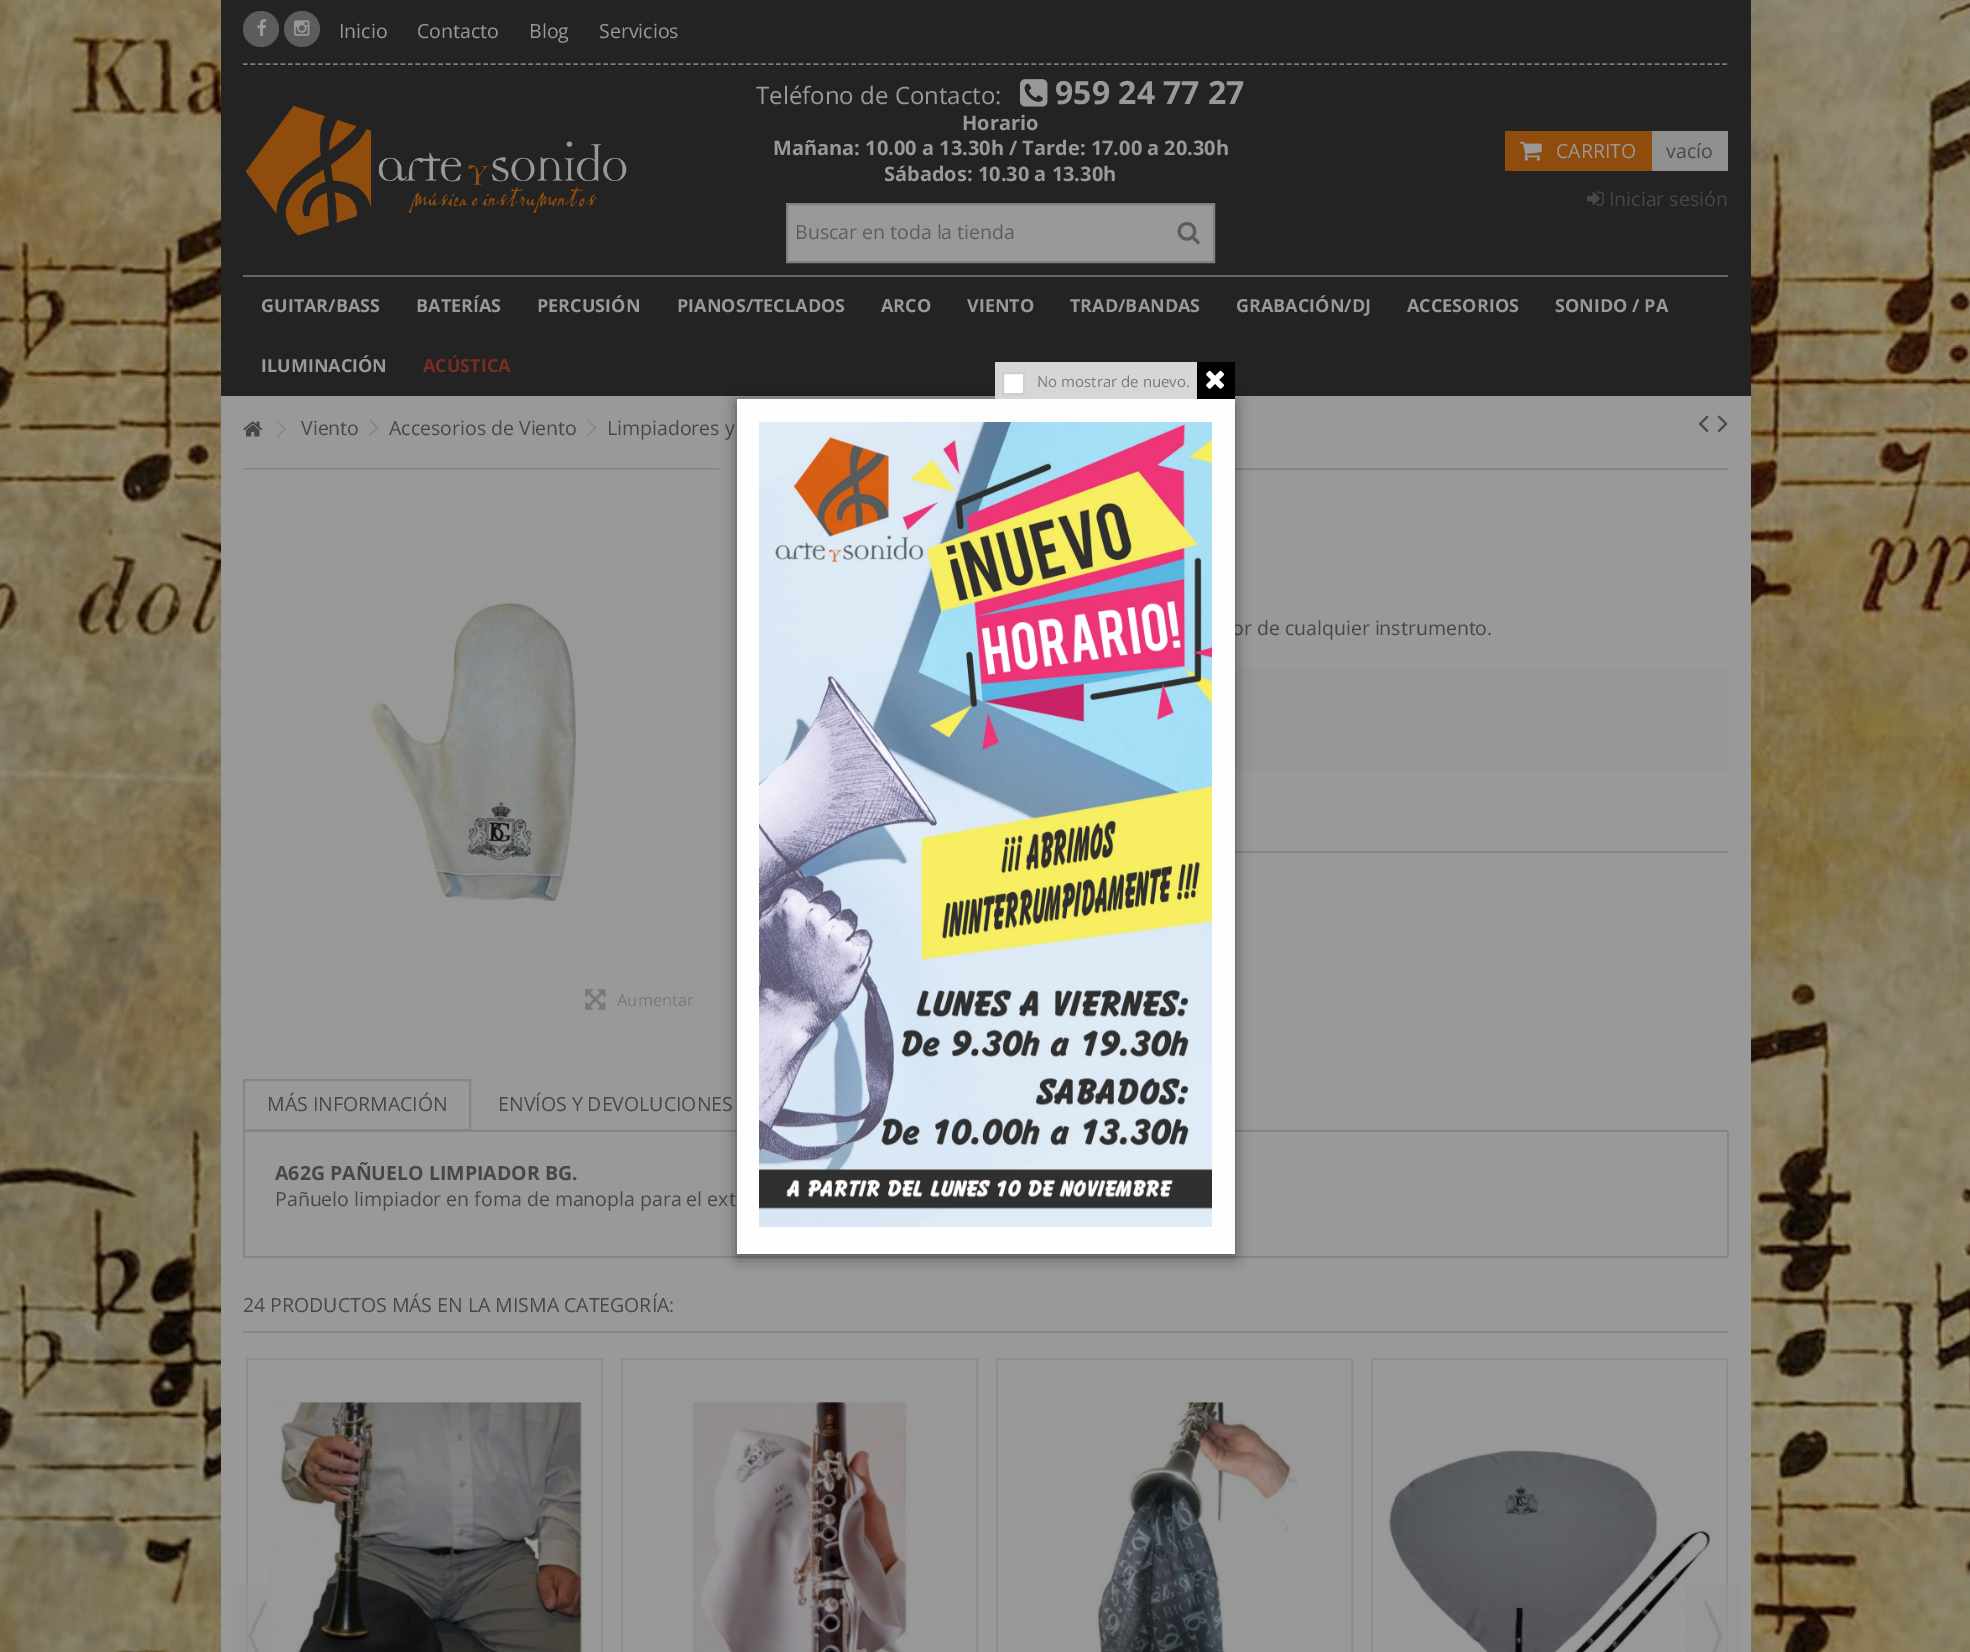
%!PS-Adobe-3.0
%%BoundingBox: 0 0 1970 1652
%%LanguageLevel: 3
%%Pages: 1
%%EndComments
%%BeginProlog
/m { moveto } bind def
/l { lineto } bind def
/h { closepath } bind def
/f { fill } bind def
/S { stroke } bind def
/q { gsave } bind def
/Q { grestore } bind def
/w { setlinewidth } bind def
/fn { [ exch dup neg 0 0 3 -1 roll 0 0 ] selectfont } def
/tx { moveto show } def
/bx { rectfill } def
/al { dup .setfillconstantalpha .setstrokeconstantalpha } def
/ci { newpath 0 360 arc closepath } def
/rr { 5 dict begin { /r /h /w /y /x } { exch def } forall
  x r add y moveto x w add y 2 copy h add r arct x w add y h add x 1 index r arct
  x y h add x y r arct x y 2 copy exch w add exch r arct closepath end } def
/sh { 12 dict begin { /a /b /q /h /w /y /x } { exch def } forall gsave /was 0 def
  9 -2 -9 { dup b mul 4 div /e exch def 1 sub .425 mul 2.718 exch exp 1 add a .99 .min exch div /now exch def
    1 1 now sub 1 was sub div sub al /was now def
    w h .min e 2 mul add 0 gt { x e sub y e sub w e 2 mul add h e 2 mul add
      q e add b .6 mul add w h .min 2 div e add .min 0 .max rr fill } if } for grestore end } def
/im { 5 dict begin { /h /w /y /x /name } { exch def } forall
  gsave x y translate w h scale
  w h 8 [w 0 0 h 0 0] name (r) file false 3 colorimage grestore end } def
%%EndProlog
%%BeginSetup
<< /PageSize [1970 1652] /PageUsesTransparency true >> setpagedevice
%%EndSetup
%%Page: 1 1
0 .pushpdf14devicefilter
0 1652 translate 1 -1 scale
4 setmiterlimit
1 setgray
0 0 1970 1652 bx
(image0.raw) 0 0 1970 1652 im
0.137 setgray
221 0 1530 396 bx
0.502 0.498 0.498 setrgbcolor
1.5 w
[4.5 3.01] 0 setdash
243 64 m 1728 64 l S
0.361 0.361 0.365 setrgbcolor
261 29 18 ci f
(image1.raw) 257 19 10 17 im
302 29 18 ci f
(image2.raw) 294 20 16 16 im
/OpenSans-Regular 19.5 fn
0.6 setgray
(Inicio) 339 38 tx
(Contacto) 417 38 tx
(Blog) 529 38 tx
(Servicios) 599 38 tx
(image3.raw) 245 106 382 130 im
/OpenSans-Regular 24 fn
(Teléfono de Contacto:) 756 104 tx
(image4.raw) 1020 79 28 28 im
/OpenSans-Bold 32 fn
(959 24 77 27) 1055 104 tx
/OpenSans-Bold 20 fn
(Horario) 962 130 tx
(Mañana: 10.00 a 13.30h / Tarde: 17.00 a 20.30h) 773 155 tx
(Sábados: 10.30 a 13.30h) 884 181 tx
787 204 m 1214 204 l 1214 262 l 787 262 l h q f Q
0.502 0.498 0.498 setrgbcolor
2 w
[] 0 setdash
S
/OpenSans-Regular 19.5 fn
0.369 0.365 0.365 setrgbcolor
(Buscar en toda la tienda) 795 239 tx
(image5.raw) 1177 221 23 24 im
0.565 0.298 0.051 setrgbcolor
1505 131 147 40 bx
(image6.raw) 1519 141 23 20 im
0.6 setgray
(CARRITO) 1556 158 tx
0.561 setgray
1652 131 76 40 bx
0.278 setgray
(vacío) 1666 158 tx
(image7.raw) 1587 191 17 15 im
(Iniciar sesión) 1609 206 tx
0.404 setgray
243 275 1485 2 bx
/OpenSans-Bold 18 fn
0.6 setgray
(GUITAR/BASS) 261 312 tx
(BATERÍAS) 416 312 tx
(PERCUSIÓN) 537 312 tx
(PIANOS/TECLADOS) 677 312 tx
(ARCO) 881 312 tx
(VIENTO) 967 312 tx
(TRAD/BANDAS) 1070 312 tx
(GRABACIÓN/DJ) 1236 312 tx
(ACCESORIOS) 1407 312 tx
(SONIDO / PA) 1555 312 tx
(ILUMINACIÓN) 261 372 tx
0.467 0.176 0.133 setrgbcolor
(ACÚSTICA) 423 372 tx
0.6 setgray
221 396 1530 1256 bx
(image8.raw) 243 421 20 16 im
0.522 setgray
277.5 420.5 m 286 429 l 285 430 l 276.5 421.5 l h f
285 428 m 286 429 l 277.5 437.5 l 276.5 436.5 l h f
/OpenSans-Regular 19.5 fn
0.278 setgray
(Viento) 301 435 tx
0.522 setgray
370 419 m 378.5 427.5 l 377 428.5 l 369 420 l h f
377 426.5 m 378.5 427.5 l 370 436 l 369 435 l h f
0.278 setgray
(Accesorios de Viento) 389 435 tx
0.522 setgray
588 419 m 596.5 427.5 l 595.5 428.5 l 587 420 l h f
595.5 426.5 m 596.5 427.5 l 588 436 l 587 435 l h f
0.278 setgray
(Limpiadores y) 607 435 tx
(image9.raw) 1698 415 11 18 im
(image10.raw) 1717 415 11 18 im
0.522 setgray
1235 468 493 2 bx
0.278 setgray
(or de cualquier instrumento.) 1232 635 tx
0.588 setgray
1235 669 493 101 bx
0.522 setgray
1235 851 493 2 bx
243 468 476 2 bx
(image11.raw) 243 469 476 437 im
(image12.raw) 585 989 21 21 im
/OpenSans-Regular 16.5 fn
0.475 setgray
(Aumentar) 617 1006 tx
0.522 setgray
243 1130 1485 2 bx
244 1080 226 50 rectstroke
/OpenSans-Regular 19.5 fn
0.278 setgray
(MÁS INFORMACIÓN) 267 1111 tx
(ENVÍOS Y DEVOLUCIONES) 498 1111 tx
0.522 setgray
1727 1131 2 126 bx
243 1256 1485 2 bx
243 1131 2 126 bx
/OpenSans-Bold 19.5 fn
0.278 setgray
(A62G PAÑUELO LIMPIADOR BG.) 275 1180 tx
/OpenSans-Regular 19.5 fn
(Pañuelo limpiador en foma de manopla para el ext) 275 1206 tx
0.522 setgray
243 1331 1485 2 bx
0.278 setgray
(24 PRODUCTOS MÁS EN LA MISMA CATEGORÍA:) 243 1312 tx
0.553 setgray
247 1359 355 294 rectstroke
(image13.raw) 268 1399 320 253 im
622 1359 355 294 rectstroke
(image14.raw) 691 1399 220 253 im
997 1359 355 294 rectstroke
(image15.raw) 1092 1399 206 253 im
1372 1359 355 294 rectstroke
(image16.raw) 1386 1442 327 210 im
0.8 al
0.584 setgray
231 1584 37 68 bx
1 al
0.537 setgray
252 1636 m 267 1602 l 265 1600 l 248 1636 l h 265 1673 m 267 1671 l 252 1636 l 248 1636 l h f
0.8 al
0.584 setgray
1686 1584 54 68 bx
1 al
0.537 setgray
1719 1636 m 1704 1602 l 1706 1600 l 1723 1636 l h 1706 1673 m 1704 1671 l 1719 1636 l 1723 1636 l h f
0 setgray
737 402 498 855 0 7.5 0.5 sh
0.996 setgray
737 399 498 855 bx
0.839 setgray
995 362 202 37 bx
1 setgray
1003 373 m 1024 373 l 1024 394 l 1003 394 l h q f Q
0.808 setgray
S
/OpenSans-Regular 15 fn
0.475 setgray
(No mostrar de nuevo.) 1037 387 tx
0 setgray
1197 362 38 37 bx
(image17.raw) 1206 370 18 19 im
(image18.raw) 759 422 453 805 im
.poppdf14devicefilter showpage
%%EOF
